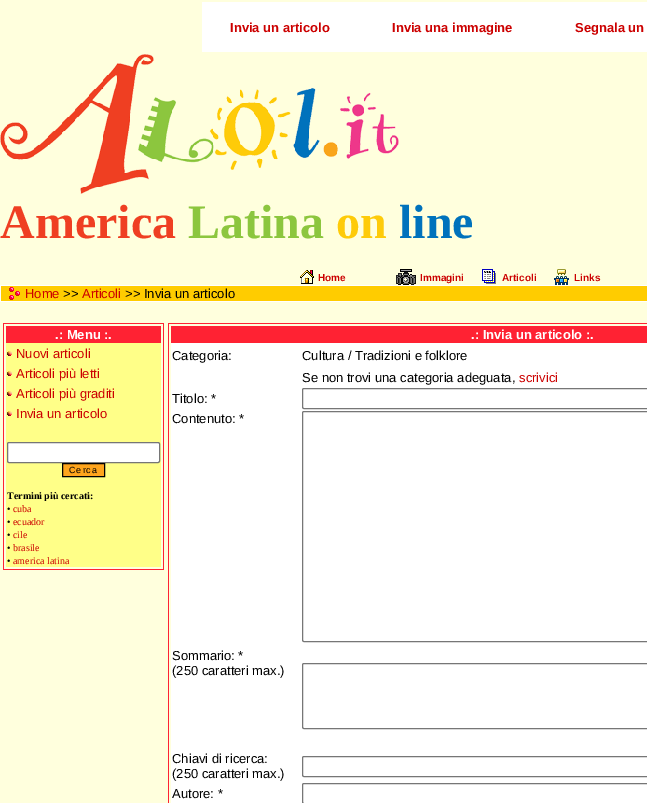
%!PS-Adobe-3.0
%%BoundingBox: 0 0 647 803
%%LanguageLevel: 3
%%Pages: 1
%%EndComments
%%BeginProlog
/m { moveto } bind def
/l { lineto } bind def
/h { closepath } bind def
/f { fill } bind def
/S { stroke } bind def
/q { gsave } bind def
/Q { grestore } bind def
/fn { [ exch dup neg 0 0 3 -1 roll 0 0 ] selectfont } def
/tx { moveto show } def
/bx { rectfill } def
/rr { 5 dict begin { /r /h /w /y /x } { exch def } forall
  x r add y moveto x w add y 2 copy h add r arct x w add y h add x 1 index r arct
  x y h add x y r arct x y 2 copy exch w add exch r arct closepath end } def
/im { 5 dict begin { /h /w /y /x /name } { exch def } forall
  gsave x y translate w h scale
  w h 8 [w 0 0 h 0 0] name (r) file false 3 colorimage grestore end } def
%%EndProlog
%%BeginSetup
<< /PageSize [647 803] >> setpagedevice
%%EndSetup
%%Page: 1 1
0 803 translate 1 -1 scale
4 setmiterlimit
1 1 0.867 setrgbcolor
0 0 647 803 bx
1 setgray
202 2 445 50 bx
/LiberationSans-Bold 13 fn
0.8 0 0 setrgbcolor
(Invia un articolo) 230 32 tx
(Invia una immagine) 392 32 tx
(Segnala un) 575 32 tx
(image0.raw) 0 54 399 140 im
/LiberationSerif-Bold 48 fn
0.937 0.247 0.133 setrgbcolor
(America) 0 238 tx
0.549 0.776 0.243 setrgbcolor
(Latina) 188 238 tx
0.996 0.796 0.035 setrgbcolor
(on) 336 238 tx
0 0.447 0.737 setrgbcolor
(line) 399 238 tx
(image1.raw) 300 270 14 14 im
/LiberationSans-Bold 10 fn
0.8 0 0 setrgbcolor
(Home) 318 281 tx
(image2.raw) 396 269 20 16 im
(Immagini) 420 281 tx
(image3.raw) 482 269 14 15 im
(Articoli) 502 281 tx
(image4.raw) 554 269 15 16 im
(Links) 574 281 tx
1 0.8 0 setrgbcolor
1 286 646 15 bx
1 setgray
0 285 647 1 bx
0 301 647 1 bx
0 285 1 17 bx
(image5.raw) 9 287 11 13 im
/LiberationSans-Regular 13 fn
0.8 0 0 setrgbcolor
(Home) 25 298 tx
0 setgray
(>>) 63 298 tx
0.8 0 0 setrgbcolor
(Articoli) 82 298 tx
0 setgray
(>> Invia un articolo) 125 298 tx
1 0.133 0.2 setrgbcolor
3 323 161 1 bx
163 323 1 247 bx
3 569 161 1 bx
3 323 1 247 bx
6 326 155 17 bx
/LiberationSans-Bold 13 fn
1 setgray
(.: Menu :.) 55 339 tx
1 1 0.533 setrgbcolor
6 343 155 224 bx
(image6.raw) 7 351 5 5 im
/LiberationSans-Regular 13 fn
0.8 0 0 setrgbcolor
(Nuovi articoli) 16 358 tx
(image6.raw) 7 371 5 5 im
(Articoli più letti) 16 378 tx
(image6.raw) 7 391 5 5 im
(Articoli più graditi) 16 398 tx
(image6.raw) 7 411 5 5 im
(Invia un articolo) 16 418 tx
1 setgray
7.5 442.5 152 20 1.5 rr q f Q
0.463 setgray
S
1 0.647 0.114 setrgbcolor
62.5 463.5 m 104.5 463.5 l 104.5 476.5 l 62.5 476.5 l h q f Q
0 setgray
S
/LiberationSans-Regular 9 fn
69 473 m 1 0 (Cerca) ashow
/LiberationSerif-Bold 10 fn
(Termini più cercati:) 7 499 tx
/LiberationSerif-Regular 10 fn
(•) 7 512 tx
0.8 0 0 setrgbcolor
(cuba) 13 512 tx
0 setgray
(•) 7 525 tx
0.8 0 0 setrgbcolor
(ecuador) 13 525 tx
0 setgray
(•) 7 538 tx
0.8 0 0 setrgbcolor
(cile) 13 538 tx
0 setgray
(•) 7 551 tx
0.8 0 0 setrgbcolor
(brasile) 13 551 tx
0 setgray
(•) 7 564 tx
0.8 0 0 setrgbcolor
(america latina) 13 564 tx
1 0.133 0.2 setrgbcolor
168 323 479 1 bx
168 323 1 480 bx
171 326 476 17 bx
/LiberationSans-Bold 13 fn
1 setgray
(.: Invia un articolo :.) 471 339 tx
171 343 476 24 bx
/LiberationSans-Regular 13 fn
0 setgray
(Categoria:) 172 360 tx
(Cultura / Tradizioni e folklore) 302 360 tx
1 setgray
171 367 476 20 bx
0 setgray
(Se non trovi una categoria adeguata,) 302 382 tx
0.8 0 0 setrgbcolor
(scrivici) 519 382 tx
1 setgray
171 387 476 23 bx
0 setgray
(Titolo: *) 172 403 tx
0.463 setgray
302.5 388.5 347 20 1.5 rr S
1 setgray
171 410 476 237 bx
0 setgray
(Contenuto: *) 172 423 tx
0.463 setgray
302.5 411.5 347 230 1.5 rr S
1 setgray
171 647 476 103 bx
0 setgray
(Sommario: *) 172 660 tx
(\(250 caratteri max.\)) 172 675 tx
0.463 setgray
302.5 663.5 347 65 1.5 rr S
1 setgray
171 750 476 32 bx
0 setgray
(Chiavi di ricerca:) 172 763 tx
(\(250 caratteri max.\)) 172 778 tx
0.463 setgray
302.5 756.5 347 20 1.5 rr S
1 setgray
171 782 476 21 bx
0 setgray
(Autore: *) 172 798 tx
0.463 setgray
302.5 783.5 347 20 1.5 rr S
showpage
%%EOF
